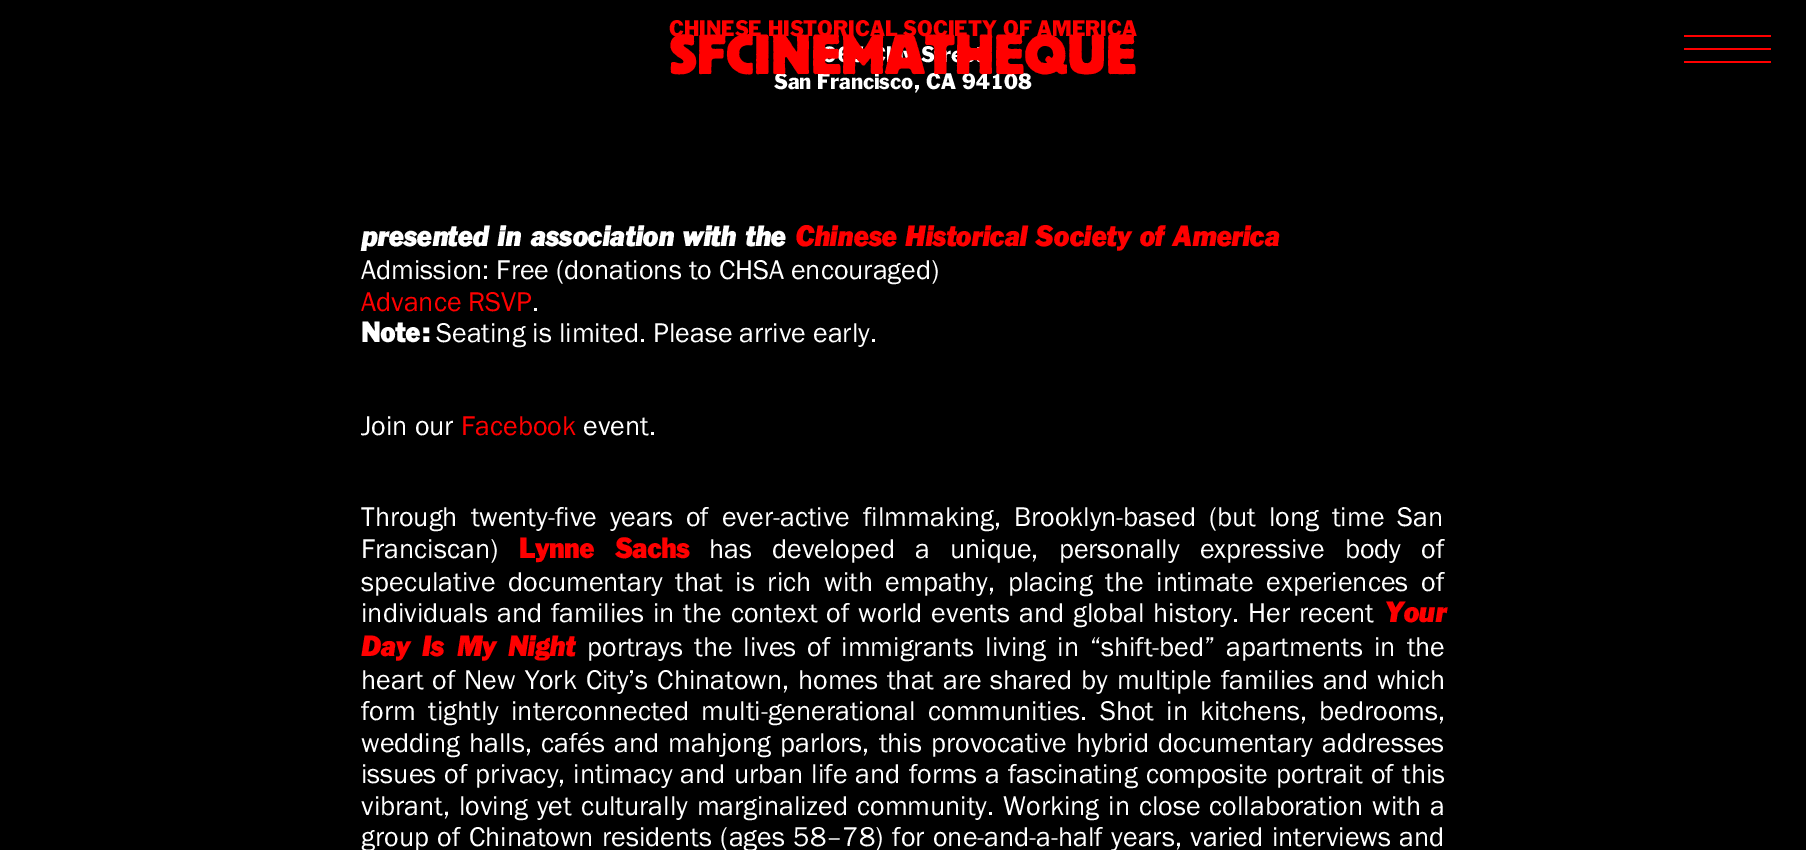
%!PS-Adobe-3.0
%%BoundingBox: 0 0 1806 850
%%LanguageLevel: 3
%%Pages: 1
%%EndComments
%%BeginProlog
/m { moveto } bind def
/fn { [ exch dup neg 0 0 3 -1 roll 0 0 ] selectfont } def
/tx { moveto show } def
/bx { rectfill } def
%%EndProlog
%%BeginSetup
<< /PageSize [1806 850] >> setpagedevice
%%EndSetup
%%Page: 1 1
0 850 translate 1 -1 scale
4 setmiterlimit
0 setgray
0 0 1806 850 bx
/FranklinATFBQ-Regular 22.4 fn
1 0 0 setrgbcolor
(CHINESE HISTORICAL SOCIETY OF AMERICA) 669 36 tx
1 setgray
(965 Clay Street) 823 62 tx
(San Francisco, CA 94108) 774 89 tx
/FranklinATFBQ-BoldItalic 28 fn
(presented in association with the) 361 246 tx
1 0 0 setrgbcolor
(Chinese Historical Society of America) 795 246 tx
/FranklinGothic-Regular 28 fn
1 setgray
(Admission: Free \(donations to CHSA encouraged\)) 361 279 tx
1 0 0 setrgbcolor
(Advance RSVP) 361 311 tx
1 setgray
(.) 532 311 tx
/FranklinATFBQ-Bold 28 fn
(Note:) 361 342 tx
/FranklinGothic-Regular 28 fn
(Seating is limited. Please arrive early.) 436 342 tx
(Join our) 361 435 tx
1 0 0 setrgbcolor
(Facebook) 461 435 tx
1 setgray
(event.) 583 435 tx
361 526 m 6 0 32 (Through twenty-five years of ever-active filmmaking, Brooklyn-based \(but long time San) widthshow
(Franciscan\)) 361 558 tx
/FranklinATFBQ-Bold 28 fn
1 0 0 setrgbcolor
519 558 m 13.25 0 32 (Lynne Sachs) widthshow
/FranklinGothic-Regular 28 fn
1 setgray
709 558 m 13.25 0 32 (has developed a unique, personally expressive body of) widthshow
361 591 m 5.75 0 32 (speculative documentary that is rich with empathy, placing the intimate experiences of) widthshow
361 622 m 2.1 0 32 (individuals and families in the context of world events and global history. Her recent) widthshow
/FranklinATFBQ-BoldItalic 28 fn
1 0 0 setrgbcolor
(Your) 1384 622 tx
361 656 m 4 0 32 (Day Is My Night) widthshow
/FranklinGothic-Regular 28 fn
1 setgray
587 656 m 4 0 32 (portrays the lives of immigrants living in “shift-bed” apartments in the) widthshow
361 689 m 1.9 0 32 (heart of New York City’s Chinatown, homes that are shared by multiple families and which) widthshow
361 720 m 5.25 0 32 (form tightly interconnected multi-generational communities. Shot in kitchens, bedrooms,) widthshow
361 752 m 2.25 0 32 (wedding halls, cafés and mahjong parlors, this provocative hybrid documentary addresses) widthshow
361 783 m 1.2 0 32 (issues of privacy, intimacy and urban life and forms a fascinating composite portrait of this) widthshow
361 815 m 2 0 32 (vibrant, loving yet culturally marginalized community. Working in close collaboration with a) widthshow
361 846 m 1.6 0 32 (group of Chinatown residents \(ages 58–78\) for one-and-a-half years, varied interviews and) widthshow
/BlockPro-Bold 56 fn
1 0 0 setrgbcolor
(SFCINEMATHEQUE) 669 74 tx
1684 35 87 2 bx
1684 48 87 2 bx
1684 61 87 2 bx
showpage
%%EOF
